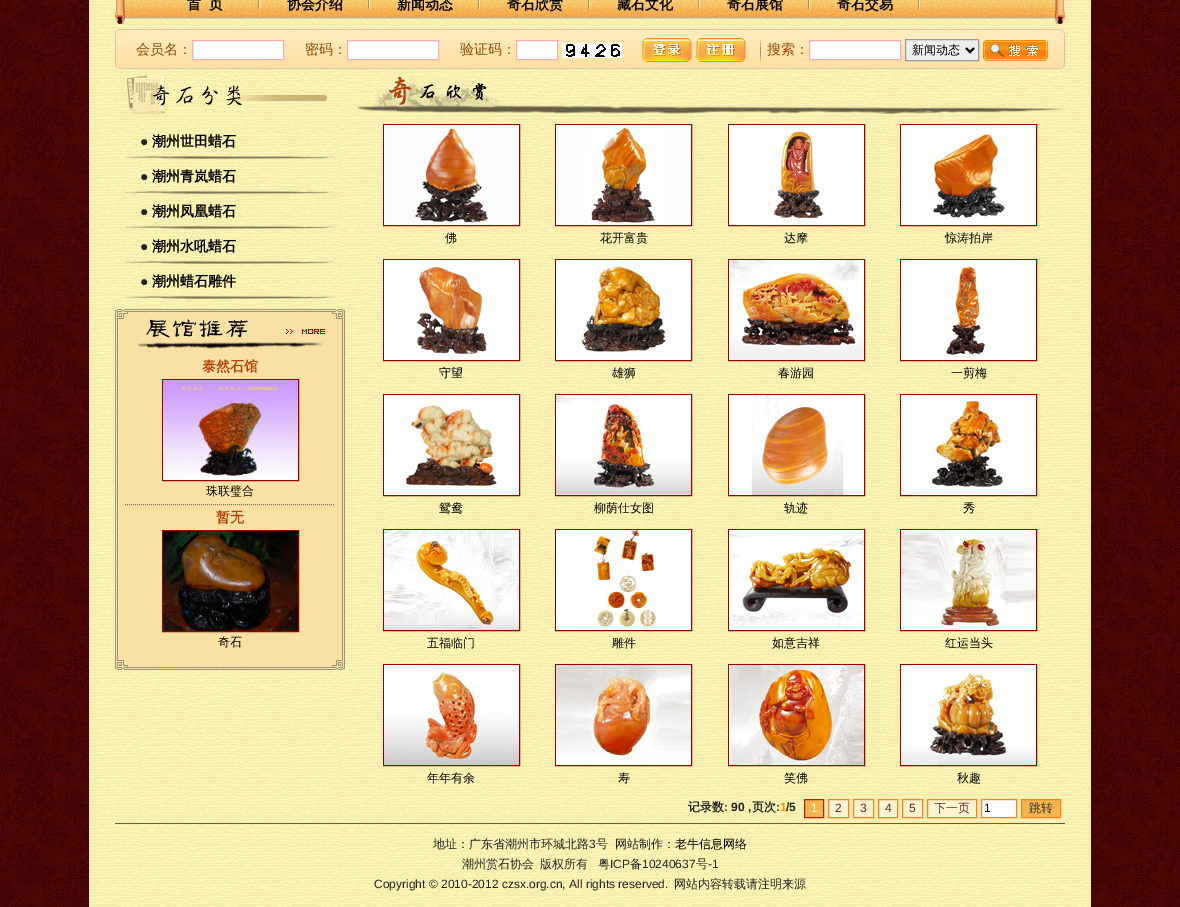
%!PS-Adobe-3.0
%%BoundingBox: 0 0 1180 907
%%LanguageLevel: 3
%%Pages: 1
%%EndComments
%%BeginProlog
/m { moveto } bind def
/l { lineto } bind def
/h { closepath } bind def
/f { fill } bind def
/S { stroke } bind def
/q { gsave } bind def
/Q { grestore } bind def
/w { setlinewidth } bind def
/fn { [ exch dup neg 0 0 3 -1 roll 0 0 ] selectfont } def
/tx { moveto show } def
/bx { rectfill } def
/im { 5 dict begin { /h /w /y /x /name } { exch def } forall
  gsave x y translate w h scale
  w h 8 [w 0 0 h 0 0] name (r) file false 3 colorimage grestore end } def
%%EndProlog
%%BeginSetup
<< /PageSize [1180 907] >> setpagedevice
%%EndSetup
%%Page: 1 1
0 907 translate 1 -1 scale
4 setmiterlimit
1 setgray
0 0 1180 907 bx
(image0.raw) 0 0 1180 907 im
(image1.raw) 89 0 1002 907 im
(image2.raw) 125 0 930 24 im
(image3.raw) 115 0 10 24 im
(image4.raw) 258 0 2 23 im
/WenQuanYiZenHei-Bold 14 fn
0 setgray
(首) 187 9 tx
(页) 209 9 tx
(image5.raw) 368 0 2 24 im
(协会介绍) 287 9 tx
(image5.raw) 478 0 2 24 im
(新闻动态) 397 9 tx
(image5.raw) 588 0 2 24 im
(奇石欣赏) 507 9 tx
(image5.raw) 698 0 2 24 im
(藏石文化) 617 9 tx
(image4.raw) 808 0 2 23 im
(奇石展馆) 727 9 tx
(image5.raw) 918 0 2 24 im
(奇石交易) 837 9 tx
(image6.raw) 1055 0 10 24 im
(image7.raw) 123 29 932 40 im
(image8.raw) 115 29 8 40 im
/WenQuanYiZenHei-Medium 14 fn
0.561 0.298 0.024 setrgbcolor
(会员名：) 136 54 tx
1 setgray
192.5 40.5 m 283.5 40.5 l 283.5 59.5 l 192.5 59.5 l h q f Q
0.973 0.682 0.678 setrgbcolor
S
0.561 0.298 0.024 setrgbcolor
(密码：) 305 54 tx
1 setgray
347.5 40.5 m 438.5 40.5 l 438.5 59.5 l 347.5 59.5 l h q f Q
0.973 0.682 0.678 setrgbcolor
S
0.561 0.298 0.024 setrgbcolor
(验证码：) 460 54 tx
1 setgray
516.5 40.5 m 557.5 40.5 l 557.5 59.5 l 516.5 59.5 l h q f Q
0.973 0.682 0.678 setrgbcolor
S
(image9.raw) 562 43 60 15 im
(image10.raw) 642 38 50 24 im
(image11.raw) 696 38 50 24 im
(image12.raw) 760 29 1 40 im
0.561 0.298 0.024 setrgbcolor
(搜索：) 767 54 tx
1 setgray
809.5 40.5 m 900.5 40.5 l 900.5 59.5 l 809.5 59.5 l h q f Q
0.973 0.682 0.678 setrgbcolor
S
0.937 setgray
905.5 39.5 m 978.5 39.5 l 978.5 60.5 l 905.5 60.5 l h q f Q
0.6 setgray
S
0 setgray
2 w
966 48 m 970 52 l 974 48 l S
/WenQuanYiZenHei-Medium 12 fn
(新闻动态) 912 54 tx
(image13.raw) 983 40 65 21 im
(image14.raw) 1055 29 10 40 im
(image15.raw) 115 74 230 40 im
(image16.raw) 125 156 210 3 im
/LiberationSans-Bold 14 fn
0.141 setgray
(●) 140 146 tx
/WenQuanYiZenHei-Bold 14 fn
0 setgray
(潮州世田蜡石) 152 146 tx
(image16.raw) 125 191 210 3 im
/LiberationSans-Bold 14 fn
0.141 setgray
(●) 140 181 tx
/WenQuanYiZenHei-Bold 14 fn
0 setgray
(潮州青岚蜡石) 152 181 tx
(image16.raw) 125 226 210 3 im
/LiberationSans-Bold 14 fn
0.141 setgray
(●) 140 216 tx
/WenQuanYiZenHei-Bold 14 fn
0 setgray
(潮州凤凰蜡石) 152 216 tx
(image16.raw) 125 261 210 3 im
/LiberationSans-Bold 14 fn
0.141 setgray
(●) 140 251 tx
/WenQuanYiZenHei-Bold 14 fn
0 setgray
(潮州水吼蜡石) 152 251 tx
(image16.raw) 125 296 210 3 im
/LiberationSans-Bold 14 fn
0.141 setgray
(●) 140 286 tx
/WenQuanYiZenHei-Bold 14 fn
0 setgray
(潮州蜡石雕件) 152 286 tx
(image17.raw) 115 309 217 10 im
(image18.raw) 332 309 13 10 im
(image19.raw) 115 319 230 341 im
(image20.raw) 134 319 201 30 im
(image21.raw) 286 329 39 5 im
0.498 0.443 0.306 setrgbcolor
1 w
[1 1] 0 setdash
125 504.5 m 335 504.5 l S
0.71 0.271 0.02 setrgbcolor
(泰然石馆) 202 371 tx
0.592 0.004 0 setrgbcolor
[] 0 setdash
162.5 379.5 136 101 rectstroke
(image22.raw) 163 380 135 100 im
/WenQuanYiZenHei-Medium 12 fn
0 setgray
(珠联璧合) 206 495 tx
/WenQuanYiZenHei-Bold 14 fn
0.71 0.271 0.02 setrgbcolor
(暂无) 216 522 tx
0.592 0.004 0 setrgbcolor
162.5 530.5 136 101 rectstroke
(image23.raw) 163 531 135 100 im
/WenQuanYiZenHei-Medium 12 fn
0 setgray
(奇石) 218 646 tx
(image24.raw) 115 660 217 10 im
(image25.raw) 332 660 13 10 im
(image26.raw) 355 74 710 40 im
0.592 0.004 0 setrgbcolor
383.5 124.5 136 101 rectstroke
(image27.raw) 384 125 135 100 im
0 setgray
(佛) 445 242 tx
0.592 0.004 0 setrgbcolor
555.5 124.5 136 101 rectstroke
(image28.raw) 556 125 135 100 im
0 setgray
(花开富贵) 600 242 tx
0.592 0.004 0 setrgbcolor
728.5 124.5 136 101 rectstroke
(image29.raw) 729 125 135 100 im
0 setgray
(达摩) 784 242 tx
0.592 0.004 0 setrgbcolor
900.5 124.5 136 101 rectstroke
(image30.raw) 901 125 135 100 im
0 setgray
(惊涛拍岸) 945 242 tx
0.592 0.004 0 setrgbcolor
383.5 259.5 136 101 rectstroke
(image31.raw) 384 260 135 100 im
0 setgray
(守望) 439 377 tx
0.592 0.004 0 setrgbcolor
555.5 259.5 136 101 rectstroke
(image32.raw) 556 260 135 100 im
0 setgray
(雄狮) 612 377 tx
0.592 0.004 0 setrgbcolor
728.5 259.5 136 101 rectstroke
(image33.raw) 729 260 135 100 im
0 setgray
(春游园) 778 377 tx
0.592 0.004 0 setrgbcolor
900.5 259.5 136 101 rectstroke
(image34.raw) 901 260 135 100 im
0 setgray
(一剪梅) 951 377 tx
0.592 0.004 0 setrgbcolor
383.5 394.5 136 101 rectstroke
(image35.raw) 384 395 135 100 im
0 setgray
(鸳鸯) 439 512 tx
0.592 0.004 0 setrgbcolor
555.5 394.5 136 101 rectstroke
(image36.raw) 556 395 135 100 im
0 setgray
(柳荫仕女图) 594 512 tx
0.592 0.004 0 setrgbcolor
728.5 394.5 136 101 rectstroke
(image37.raw) 729 395 135 100 im
0 setgray
(轨迹) 784 512 tx
0.592 0.004 0 setrgbcolor
900.5 394.5 136 101 rectstroke
(image38.raw) 901 395 135 100 im
0 setgray
(秀) 963 512 tx
0.592 0.004 0 setrgbcolor
383.5 529.5 136 101 rectstroke
(image39.raw) 384 530 135 100 im
0 setgray
(五福临门) 427 647 tx
0.592 0.004 0 setrgbcolor
555.5 529.5 136 101 rectstroke
(image40.raw) 556 530 135 100 im
0 setgray
(雕件) 612 647 tx
0.592 0.004 0 setrgbcolor
728.5 529.5 136 101 rectstroke
(image41.raw) 729 530 135 100 im
0 setgray
(如意吉祥) 772 647 tx
0.592 0.004 0 setrgbcolor
900.5 529.5 136 101 rectstroke
(image42.raw) 901 530 135 100 im
0 setgray
(红运当头) 945 647 tx
0.592 0.004 0 setrgbcolor
383.5 664.5 136 101 rectstroke
(image43.raw) 384 665 135 100 im
0 setgray
(年年有余) 427 782 tx
0.592 0.004 0 setrgbcolor
555.5 664.5 136 101 rectstroke
(image44.raw) 556 665 135 100 im
0 setgray
(寿) 618 782 tx
0.592 0.004 0 setrgbcolor
728.5 664.5 136 101 rectstroke
(image45.raw) 729 665 135 100 im
0 setgray
(笑佛) 784 782 tx
0.592 0.004 0 setrgbcolor
900.5 664.5 136 101 rectstroke
(image46.raw) 901 665 135 100 im
0 setgray
(秋趣) 957 782 tx
/WenQuanYiZenHei-Bold 12 fn
0.141 setgray
(记录数) 688 811 tx
/LiberationSans-Bold 12 fn
(: 90 ,) 724 811 tx
/WenQuanYiZenHei-Bold 12 fn
(页次) 752 811 tx
/LiberationSans-Bold 12 fn
(:) 776 811 tx
1 0.6 0 setrgbcolor
(1) 780 811 tx
0.141 setgray
(/5) 786 811 tx
0.957 0.71 0.306 setrgbcolor
804.5 799.5 m 823.5 799.5 l 823.5 817.5 l 804.5 817.5 l h q f Q
0.757 0.118 0.051 setrgbcolor
S
/LiberationSans-Regular 12 fn
1 setgray
(1) 811 812 tx
0.992 0.961 0.816 setrgbcolor
828.5 799.5 m 848.5 799.5 l 848.5 817.5 l 828.5 817.5 l h q f Q
1 0.498 0.149 setrgbcolor
S
0.443 0.125 0.184 setrgbcolor
(2) 835 812 tx
0.992 0.961 0.816 setrgbcolor
853.5 799.5 m 873.5 799.5 l 873.5 817.5 l 853.5 817.5 l h q f Q
1 0.498 0.149 setrgbcolor
S
0.443 0.125 0.184 setrgbcolor
(3) 860 812 tx
0.992 0.961 0.816 setrgbcolor
878.5 799.5 m 897.5 799.5 l 897.5 817.5 l 878.5 817.5 l h q f Q
1 0.498 0.149 setrgbcolor
S
0.443 0.125 0.184 setrgbcolor
(4) 885 812 tx
0.992 0.961 0.816 setrgbcolor
902.5 799.5 m 922.5 799.5 l 922.5 817.5 l 902.5 817.5 l h q f Q
1 0.498 0.149 setrgbcolor
S
0.443 0.125 0.184 setrgbcolor
(5) 909 812 tx
0.992 0.961 0.816 setrgbcolor
927.5 799.5 m 976.5 799.5 l 976.5 817.5 l 927.5 817.5 l h q f Q
1 0.498 0.149 setrgbcolor
S
/WenQuanYiZenHei-Medium 12 fn
0.443 0.125 0.184 setrgbcolor
(下一页) 934 812 tx
1 setgray
981.5 799.5 m 1016.5 799.5 l 1016.5 817.5 l 981.5 817.5 l h q f Q
1 0.498 0.149 setrgbcolor
S
/LiberationSans-Regular 12 fn
0 setgray
(1) 984 812 tx
0.957 0.71 0.306 setrgbcolor
1021.5 799.5 m 1060.5 799.5 l 1060.5 817.5 l 1021.5 817.5 l h q f Q
1 0.498 0.149 setrgbcolor
S
/WenQuanYiZenHei-Medium 12 fn
0.2 setgray
(跳转) 1029 812 tx
0.392 0.376 0.278 setrgbcolor
115 823 950 1 bx
0.141 setgray
(地址：广东省潮州市环城北路) 433 848 tx
/LiberationSans-Regular 12 fn
(3) 589 848 tx
/WenQuanYiZenHei-Medium 12 fn
(号) 596 848 tx
(网站制作：) 615 848 tx
0 setgray
(老牛信息网络) 675 848 tx
0.141 setgray
(潮州赏石协会) 462 868 tx
(版权所有) 540 868 tx
(粤) 598 868 tx
/LiberationSans-Regular 12 fn
(ICP) 610 868 tx
/WenQuanYiZenHei-Medium 12 fn
(备) 630 868 tx
/LiberationSans-Regular 12 fn
(10240637) 642 868 tx
/WenQuanYiZenHei-Medium 12 fn
(号) 696 868 tx
/LiberationSans-Regular 12 fn
(-1) 708 868 tx
(Copyright © 2010-2012 czsx.org.cn, All rights reserved.) 374 888 tx
/WenQuanYiZenHei-Medium 12 fn
(网站内容转载请注明来源) 674 888 tx
showpage
%%EOF
